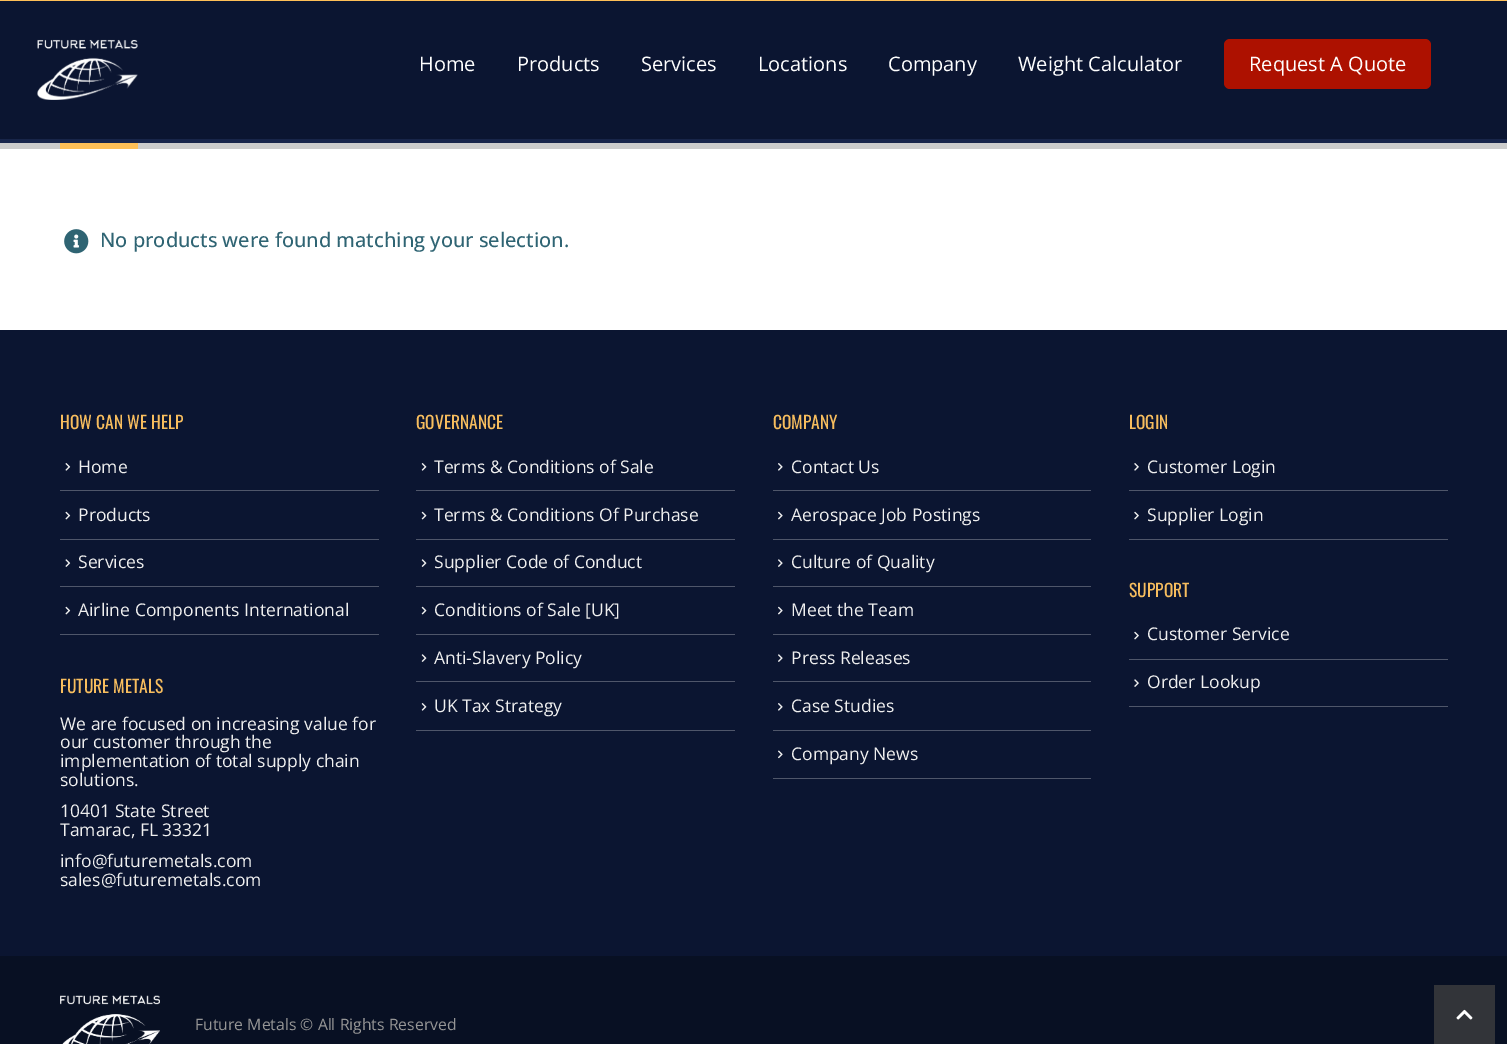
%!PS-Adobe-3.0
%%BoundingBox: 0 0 1507 1044
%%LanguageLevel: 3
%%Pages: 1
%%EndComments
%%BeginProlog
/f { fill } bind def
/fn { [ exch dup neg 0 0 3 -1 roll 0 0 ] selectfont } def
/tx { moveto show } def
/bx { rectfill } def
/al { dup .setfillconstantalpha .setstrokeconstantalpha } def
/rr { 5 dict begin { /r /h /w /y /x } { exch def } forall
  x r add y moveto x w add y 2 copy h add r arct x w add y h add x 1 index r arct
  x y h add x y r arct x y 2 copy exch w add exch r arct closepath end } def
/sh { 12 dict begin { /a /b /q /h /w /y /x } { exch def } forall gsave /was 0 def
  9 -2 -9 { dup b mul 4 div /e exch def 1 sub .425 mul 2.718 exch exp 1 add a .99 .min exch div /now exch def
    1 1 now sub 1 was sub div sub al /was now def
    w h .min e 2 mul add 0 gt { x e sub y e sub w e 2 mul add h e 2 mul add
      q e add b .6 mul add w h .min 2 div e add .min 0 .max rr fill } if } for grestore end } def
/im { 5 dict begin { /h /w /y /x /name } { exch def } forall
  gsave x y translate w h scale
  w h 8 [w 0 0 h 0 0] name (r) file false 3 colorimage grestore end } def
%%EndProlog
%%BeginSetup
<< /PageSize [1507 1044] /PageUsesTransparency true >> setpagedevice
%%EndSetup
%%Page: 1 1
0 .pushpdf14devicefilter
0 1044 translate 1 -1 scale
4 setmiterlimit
1 setgray
0 0 1507 1044 bx
0.094 0.145 0.294 setrgbcolor
0 139 1507 4 bx
0.8 setgray
0 143 1507 6 bx
0.996 0.749 0.341 setrgbcolor
60 143 78 6 bx
0 setgray
0 0 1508 139 0 2 0.06 sh
0.043 0.082 0.192 setrgbcolor
0 1 1507 138 bx
0.996 0.749 0.341 setrgbcolor
0 0 1507 1 bx
(image0.raw) 37 39 101 61 im
/OpenSans-Regular 20 fn
1 setgray
(Home) 419 71 tx
(Products) 517 71 tx
(Services) 641 71 tx
(Locations) 758 71 tx
(Company) 888 71 tx
(Weight Calculator) 1018 71 tx
0.678 0.067 0 setrgbcolor
1224 39 207 50 6 rr f
1 setgray
(Request A Quote) 1249 71 tx
(image1.raw) 64 229 25 25 im
/OpenSans-Medium 20 fn
0.184 0.392 0.451 setrgbcolor
(No products were found matching your selection.) 100 247 tx
0.043 0.082 0.192 setrgbcolor
0 330 1507 626 bx
/Oswald-Regular 17.5 fn
0.969 0.741 0.369 setrgbcolor
(HOW CAN WE HELP) 60 429 tx
0.31 0.337 0.416 setrgbcolor
60 634 319 1 bx
(image2.raw) 65 463 6 8 im
/OpenSans-Regular 17.5 fn
0.937 setgray
(Home) 78 473 tx
0.31 0.337 0.416 setrgbcolor
60 490 319 1 bx
(image3.raw) 65 511 6 9 im
0.937 setgray
(Products) 78 521 tx
0.31 0.337 0.416 setrgbcolor
60 539 319 1 bx
(image4.raw) 65 559 6 8 im
0.937 setgray
(Services) 78 568 tx
0.31 0.337 0.416 setrgbcolor
60 586 319 1 bx
(image3.raw) 65 606 6 9 im
0.937 setgray
(Airline Components International) 78 616 tx
/Oswald-Regular 17.5 fn
0.969 0.741 0.369 setrgbcolor
(FUTURE METALS) 60 693 tx
/OpenSans-Regular 17.5 fn
0.937 setgray
(We are focused on increasing value for) 60 730 tx
(our customer through the) 60 748 tx
(implementation of total supply chain) 60 767 tx
(solutions.) 60 786 tx
(10401 State Street) 60 817 tx
(Tamarac, FL 33321) 60 836 tx
(info@futuremetals.com) 60 867 tx
(sales@futuremetals.com) 60 886 tx
/Oswald-Regular 17.5 fn
0.969 0.741 0.369 setrgbcolor
(GOVERNANCE) 416 429 tx
0.31 0.337 0.416 setrgbcolor
416 730 319 1 bx
(image5.raw) 421 463 6 8 im
/OpenSans-Regular 17.5 fn
0.937 setgray
(Terms & Conditions of Sale) 434 473 tx
0.31 0.337 0.416 setrgbcolor
416 490 319 1 bx
(image6.raw) 421 511 6 9 im
0.937 setgray
(Terms & Conditions Of Purchase) 434 521 tx
0.31 0.337 0.416 setrgbcolor
416 539 319 1 bx
(image7.raw) 421 559 6 8 im
0.937 setgray
(Supplier Code of Conduct) 434 568 tx
0.31 0.337 0.416 setrgbcolor
416 586 319 1 bx
(image6.raw) 421 606 6 9 im
0.937 setgray
(Conditions of Sale [UK]) 434 616 tx
0.31 0.337 0.416 setrgbcolor
416 634 319 1 bx
(image7.raw) 421 654 6 8 im
0.937 setgray
(Anti-Slavery Policy) 434 664 tx
0.31 0.337 0.416 setrgbcolor
416 681 319 1 bx
(image5.raw) 421 703 6 8 im
0.937 setgray
(UK Tax Strategy) 434 712 tx
/Oswald-Regular 17.5 fn
0.969 0.741 0.369 setrgbcolor
(COMPANY) 773 429 tx
0.31 0.337 0.416 setrgbcolor
773 778 318 1 bx
(image8.raw) 778 463 5 8 im
/OpenSans-Regular 17.5 fn
0.937 setgray
(Contact Us) 791 473 tx
0.31 0.337 0.416 setrgbcolor
773 490 318 1 bx
(image9.raw) 778 511 5 9 im
0.937 setgray
(Aerospace Job Postings) 791 521 tx
0.31 0.337 0.416 setrgbcolor
773 539 318 1 bx
(image10.raw) 778 559 5 8 im
0.937 setgray
(Culture of Quality) 791 568 tx
0.31 0.337 0.416 setrgbcolor
773 586 318 1 bx
(image9.raw) 778 606 5 9 im
0.937 setgray
(Meet the Team) 791 616 tx
0.31 0.337 0.416 setrgbcolor
773 634 318 1 bx
(image10.raw) 778 654 5 8 im
0.937 setgray
(Press Releases) 791 664 tx
0.31 0.337 0.416 setrgbcolor
773 681 318 1 bx
(image8.raw) 778 703 5 8 im
0.937 setgray
(Case Studies) 791 712 tx
0.31 0.337 0.416 setrgbcolor
773 730 318 1 bx
(image11.raw) 778 750 5 9 im
0.937 setgray
(Company News) 791 760 tx
/Oswald-Regular 17.5 fn
0.969 0.741 0.369 setrgbcolor
(LOGIN) 1129 429 tx
0.31 0.337 0.416 setrgbcolor
1129 539 319 1 bx
(image12.raw) 1134 463 5 8 im
/OpenSans-Regular 17.5 fn
0.937 setgray
(Customer Login) 1147 473 tx
0.31 0.337 0.416 setrgbcolor
1129 490 319 1 bx
(image13.raw) 1134 511 5 9 im
0.937 setgray
(Supplier Login) 1147 521 tx
/Oswald-Regular 17.5 fn
0.969 0.741 0.369 setrgbcolor
(SUPPORT) 1129 597 tx
0.31 0.337 0.416 setrgbcolor
1129 706 319 1 bx
(image13.raw) 1134 631 5 9 im
/OpenSans-Regular 17.5 fn
0.937 setgray
(Customer Service) 1147 640 tx
0.31 0.337 0.416 setrgbcolor
1129 659 319 1 bx
(image14.raw) 1134 679 5 8 im
0.937 setgray
(Order Lookup) 1147 688 tx
0.031 0.063 0.137 setrgbcolor
0 956 1507 88 bx
(image15.raw) 60 995 100 49 im
/OpenSans-Regular 15.75 fn
0.588 setgray
(Future Metals © All Rights Reserved) 195 1030 tx
0.196 0.204 0.224 setrgbcolor
1434 985 61 59 bx
(image16.raw) 1456 1009 17 11 im
.poppdf14devicefilter showpage
%%EOF
